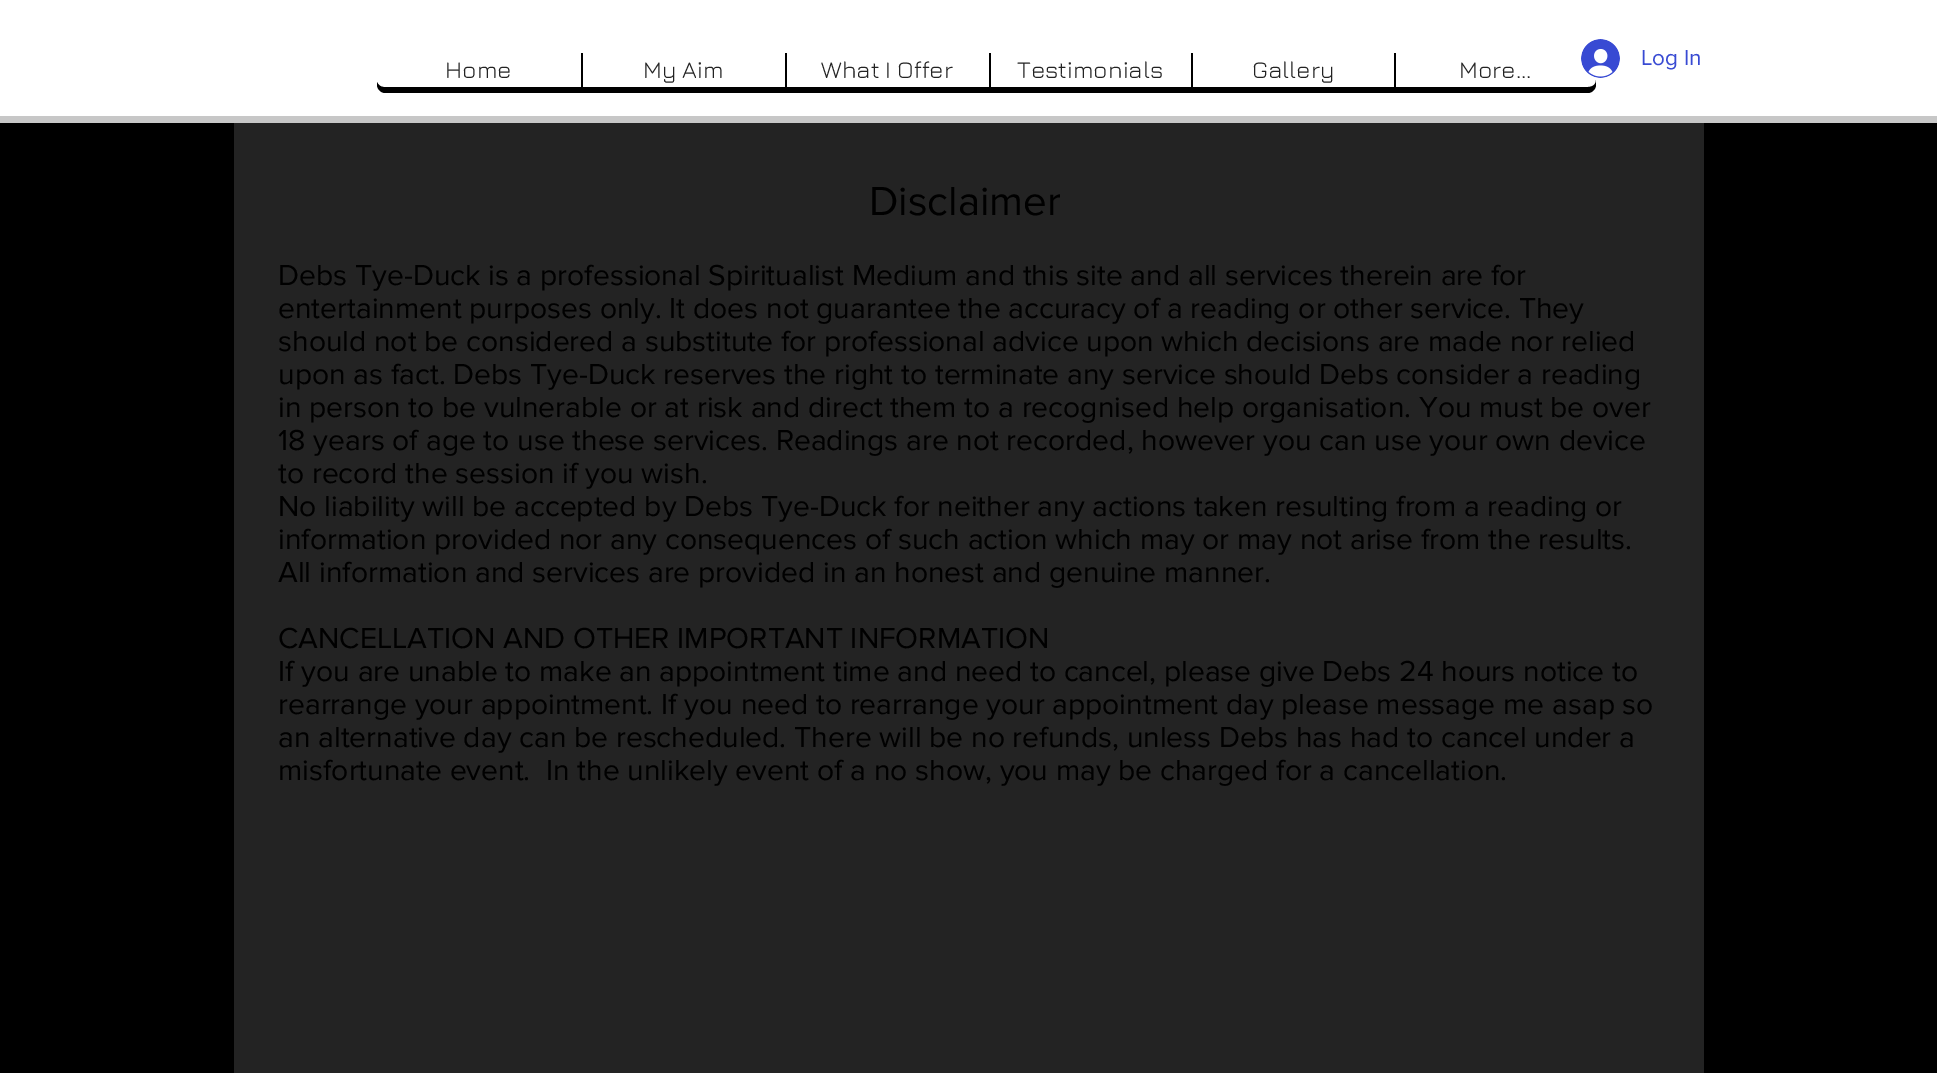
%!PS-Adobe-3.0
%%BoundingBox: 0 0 1937 1073
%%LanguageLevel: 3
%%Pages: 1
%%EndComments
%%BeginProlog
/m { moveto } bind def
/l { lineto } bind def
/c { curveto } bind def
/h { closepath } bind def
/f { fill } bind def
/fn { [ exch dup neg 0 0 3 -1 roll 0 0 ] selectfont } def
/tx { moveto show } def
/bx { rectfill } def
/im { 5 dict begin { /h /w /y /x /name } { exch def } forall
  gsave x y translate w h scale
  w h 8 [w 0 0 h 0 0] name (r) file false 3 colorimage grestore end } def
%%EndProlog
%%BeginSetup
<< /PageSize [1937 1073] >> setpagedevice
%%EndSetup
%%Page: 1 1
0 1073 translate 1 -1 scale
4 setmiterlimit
0 setgray
0 0 1937 1073 bx
1 setgray
0 0 1937 116 bx
0.78 setgray
0 116 1937 7 bx
0 setgray
377 82 m 377 85 l 377 89 381 93 385 93 c 1588 93 l 1592 93 1596 89 1596 85 c 1596 80 l 1596 84 1593 87 1588 87 c 384 87 l 381 87 378 85 377 82 c h f
/Jura-Regular 24 fn
0.137 setgray
(Home) 445 78 tx
0 setgray
581 53 2 34 bx
0.137 setgray
(My Aim) 643 78 tx
0 setgray
785 53 2 34 bx
0.137 setgray
(What I Offer) 821 78 tx
0 setgray
989 53 2 34 bx
0.137 setgray
(Testimonials) 1017 78 tx
0 setgray
1191 53 2 34 bx
0.137 setgray
(Gallery) 1252 78 tx
0 setgray
1394 53 2 34 bx
0.137 setgray
(More...) 1459 78 tx
(image0.raw) 1581 39 39 39 im
/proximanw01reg-Regular 22.5 fn
0.22 0.29 0.827 setrgbcolor
(Log In) 1641 65 tx
0.137 setgray
234 123 1470 950 bx
/proximanw01reg-Regular 42 fn
0 setgray
(Disclaimer) 869 215 tx
/proximanw01reg-Regular 30 fn
(Debs Tye-Duck is a professional Spiritualist Medium and this site and all services therein are for) 278 285 tx
(entertainment purposes only. It does not guarantee the accuracy of a reading or other service. They) 278 318 tx
(should not be considered a substitute for professional advice upon which decisions are made nor relied) 278 351 tx
(upon as fact. Debs Tye-Duck reserves the right to terminate any service should Debs consider a reading) 278 384 tx
(in person to be vulnerable or at risk and direct them to a recognised help organisation. You must be over) 278 417 tx
(18 years of age to use these services. Readings are not recorded, however you can use your own device) 278 450 tx
(to record the session if you wish.) 278 483 tx
(No liability will be accepted by Debs Tye-Duck for neither any actions taken resulting from a reading or) 278 516 tx
(information provided nor any consequences of such action which may or may not arise from the results.) 278 549 tx
(All information and services are provided in an honest and genuine manner.) 278 582 tx
(CANCELLATION AND OTHER IMPORTANT INFORMATION) 278 648 tx
(If you are unable to make an appointment time and need to cancel, please give Debs 24 hours notice to) 278 681 tx
(rearrange your appointment. If you need to rearrange your appointment day please message me asap so) 278 714 tx
(an alternative day can be rescheduled. There will be no refunds, unless Debs has had to cancel under a) 278 747 tx
(misfortunate event.  In the unlikely event of a no show, you may be charged for a cancellation.) 278 780 tx
showpage
%%EOF
